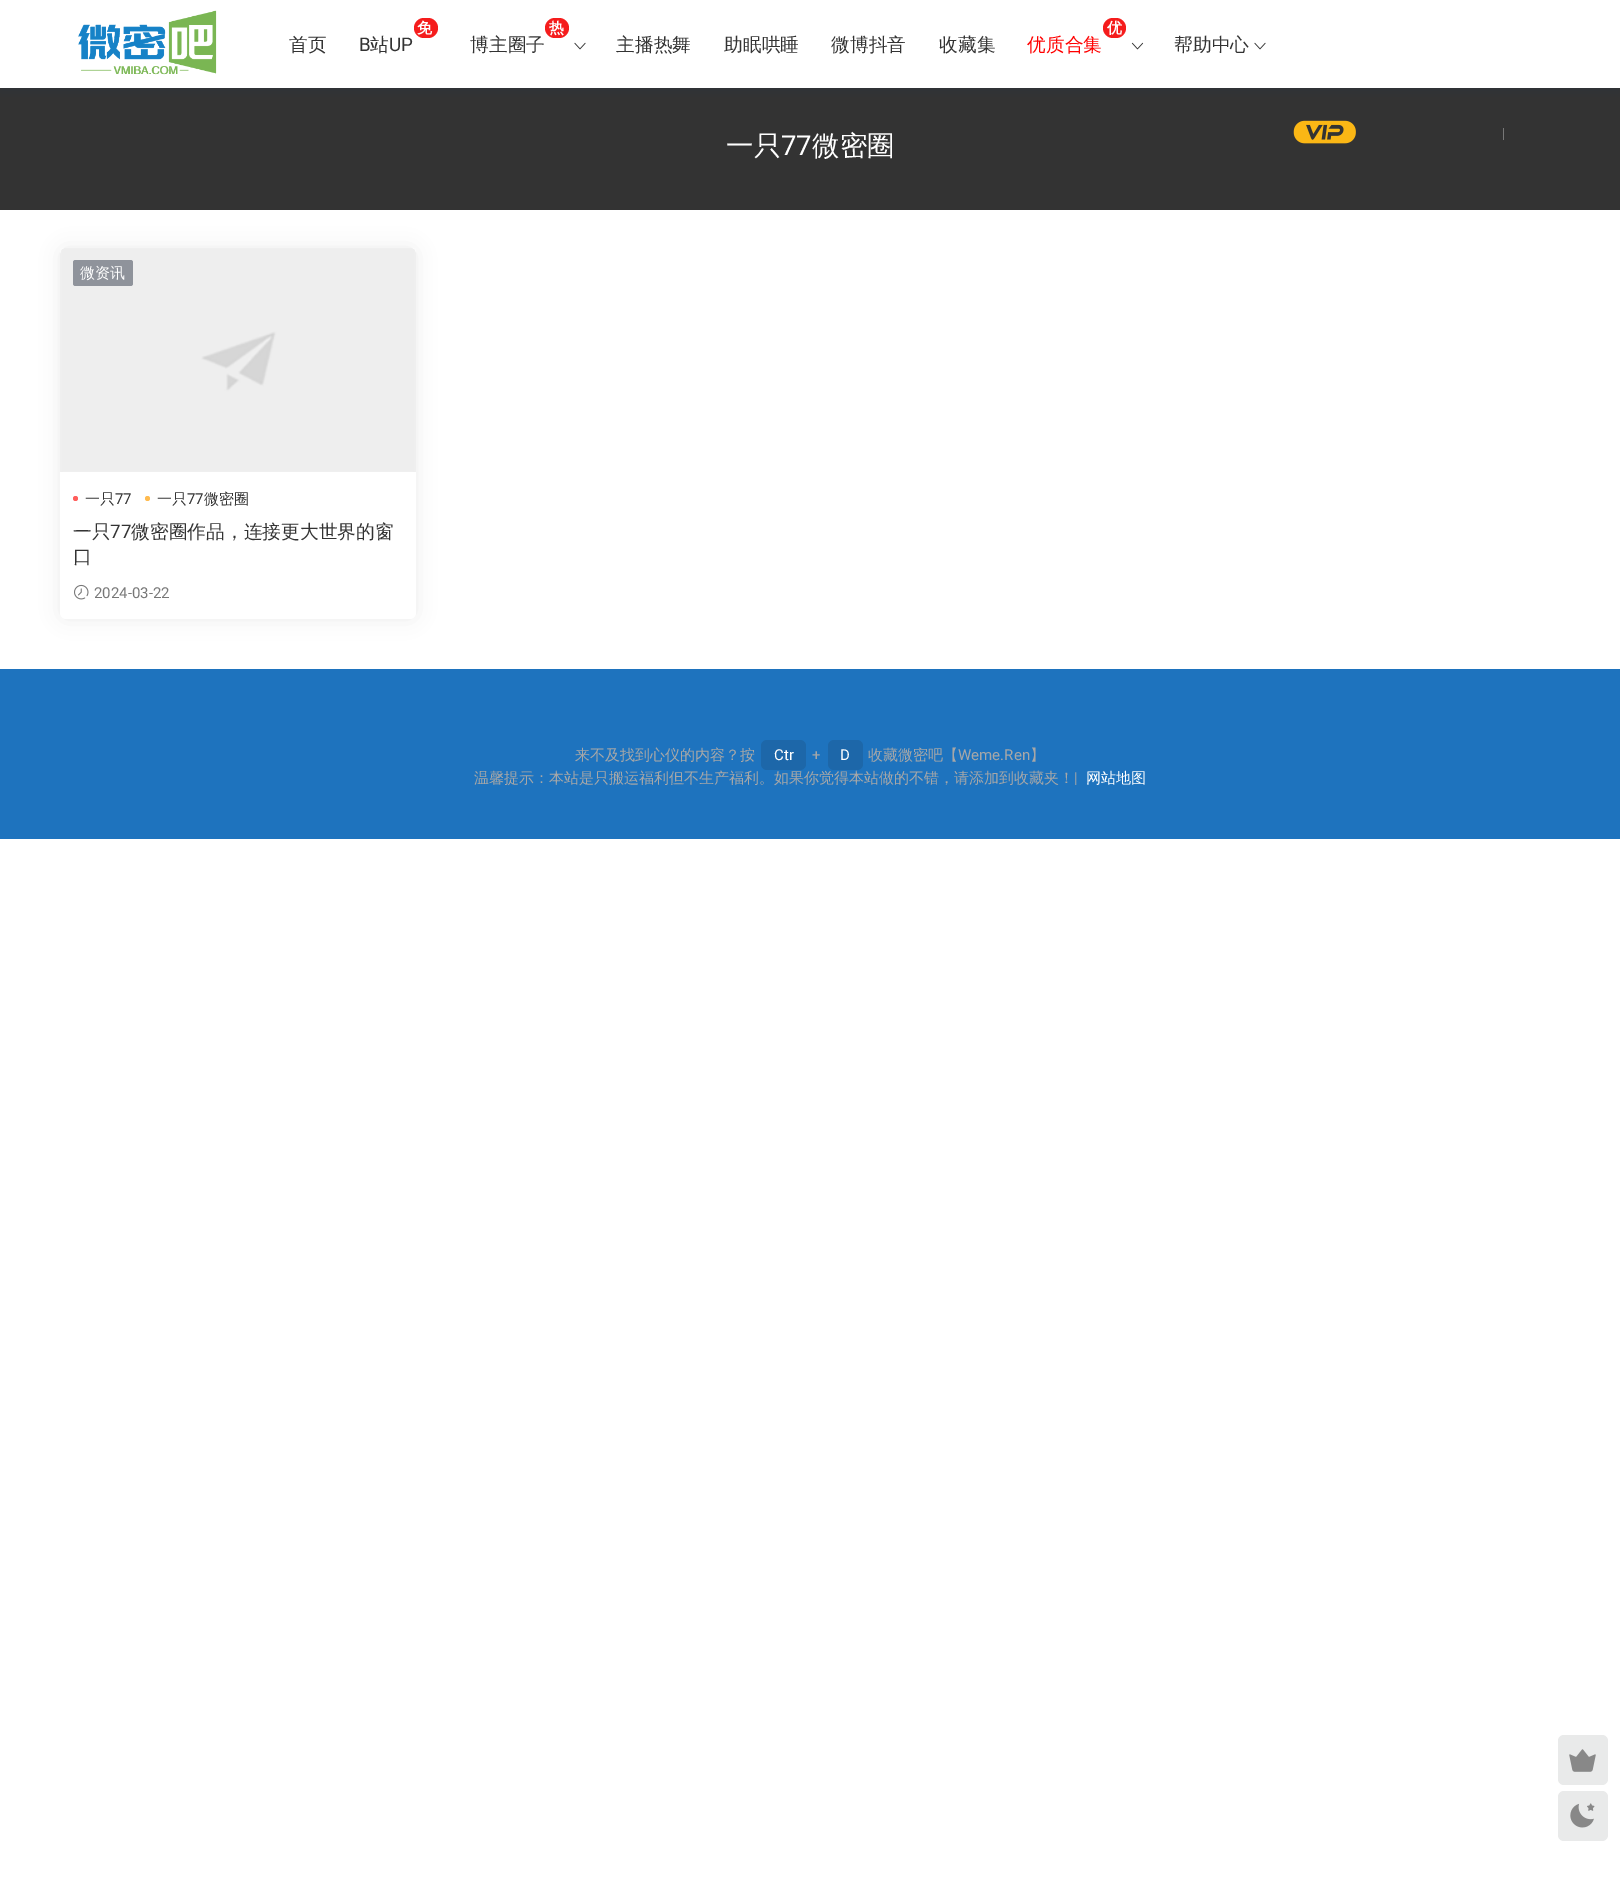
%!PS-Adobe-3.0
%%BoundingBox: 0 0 1620 1884
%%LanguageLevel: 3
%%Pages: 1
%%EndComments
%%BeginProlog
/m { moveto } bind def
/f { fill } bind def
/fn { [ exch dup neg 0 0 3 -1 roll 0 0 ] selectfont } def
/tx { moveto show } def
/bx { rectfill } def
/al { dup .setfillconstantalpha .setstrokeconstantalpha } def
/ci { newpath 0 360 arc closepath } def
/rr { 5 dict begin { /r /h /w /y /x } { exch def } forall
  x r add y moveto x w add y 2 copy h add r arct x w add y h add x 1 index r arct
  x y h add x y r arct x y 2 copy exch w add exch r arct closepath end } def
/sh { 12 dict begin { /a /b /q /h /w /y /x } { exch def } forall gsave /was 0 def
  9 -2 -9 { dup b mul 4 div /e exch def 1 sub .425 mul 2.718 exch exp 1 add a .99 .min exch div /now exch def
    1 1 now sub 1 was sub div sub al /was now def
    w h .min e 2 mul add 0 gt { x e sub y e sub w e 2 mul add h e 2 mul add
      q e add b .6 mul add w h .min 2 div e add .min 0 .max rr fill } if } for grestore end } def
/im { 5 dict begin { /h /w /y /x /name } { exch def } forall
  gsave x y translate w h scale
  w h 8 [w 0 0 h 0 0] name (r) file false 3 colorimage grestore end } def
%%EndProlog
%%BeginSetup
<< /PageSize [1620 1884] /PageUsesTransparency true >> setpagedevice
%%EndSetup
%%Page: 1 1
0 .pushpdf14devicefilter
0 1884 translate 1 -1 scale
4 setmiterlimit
1 setgray
0 0 1620 1884 bx
0.2 setgray
0 88 1620 122 bx
0.067 0.227 0.365 setrgbcolor
0 5 1620 88 0 6 0.1 sh
1 setgray
0 0 1620 88 bx
(image0.raw) 78 10 139 65 im
/WenQuanYiZenHei-Medium 18.75 fn
0.2 setgray
(首页) 289 51 tx
0.961 0.11 0.11 setrgbcolor
414 18 24 20 10 rr f
/WenQuanYiZenHei-Bold 15 fn
1 setgray
417 33 m 1 0 (免) ashow
/Roboto-Regular 18.75 fn
0.2 setgray
(B) 359 51 tx
/WenQuanYiZenHei-Medium 18.75 fn
(站) 370 51 tx
/Roboto-Regular 18.75 fn
(UP) 389 51 tx
0.961 0.11 0.11 setrgbcolor
545 18 24 20 10 rr f
/WenQuanYiZenHei-Bold 15 fn
1 setgray
549 33 m 1 0 (热) ashow
/WenQuanYiZenHei-Medium 18.75 fn
0.2 setgray
(博主圈子) 470 51 tx
(image1.raw) 574 42 12 8 im
(主播热舞) 616 51 tx
(助眠哄睡) 724 51 tx
(微博抖音) 831 51 tx
(收藏集) 939 51 tx
0.961 0.11 0.11 setrgbcolor
1103 18 23 20 10 rr f
/WenQuanYiZenHei-Bold 15 fn
1 setgray
1107 33 m 1 0 (优) ashow
/WenQuanYiZenHei-Medium 18.75 fn
1 0 0 setrgbcolor
(优质合集) 1027 51 tx
(image2.raw) 1131 42 13 8 im
0.2 setgray
(帮助中心) 1174 51 tx
(image1.raw) 1254 42 12 8 im
(image3.raw) 1293 120 63 24 im
0.467 setgray
1503 128 1 12 bx
/WenQuanYiZenHei-Medium 27.5 fn
1 setgray
(一只) 726 155 tx
/Roboto-Regular 27.5 fn
(77) 781 155 tx
/WenQuanYiZenHei-Medium 27.5 fn
(微密圈) 812 155 tx
0 setgray
60 248 356 371 6 9.5 0.07 sh
1 setgray
60 248 356 371 6 rr f
(image4.raw) 60 248 356 224 im
0.561 0.576 0.608 setrgbcolor
73 260 60 26 2.5 rr f
/WenQuanYiZenHei-Medium 15 fn
1 setgray
(微资讯) 80 278 tx
1 0.369 0.361 setrgbcolor
75.5 498.5 2.5 ci f
0.2 setgray
(一只) 85 504 tx
/Roboto-Regular 15 fn
(77) 115 504 tx
1 0.733 0.314 setrgbcolor
147.5 498.5 2.5 ci f
/WenQuanYiZenHei-Medium 15 fn
0.2 setgray
(一只) 157 504 tx
/Roboto-Regular 15 fn
(77) 187 504 tx
/WenQuanYiZenHei-Medium 15 fn
(微密圈) 204 504 tx
/WenQuanYiZenHei-Medium 18.75 fn
(一只) 73 538 tx
/Roboto-Regular 18.75 fn
(77) 110 538 tx
/WenQuanYiZenHei-Medium 18.75 fn
(微密圈作品，连接更大世界的窗) 131 538 tx
(口) 73 563 tx
(image5.raw) 74 584 15 16 im
/Roboto-Regular 15 fn
0.467 setgray
(2024-03-22) 94 598 tx
0.118 0.451 0.745 setrgbcolor
0 669 1620 170 bx
/WenQuanYiZenHei-Medium 15 fn
0.655 setgray
(来不及找到心仪的内容？按) 575 760 tx
0.114 0.404 0.663 setrgbcolor
761 740 45 30 6 rr f
/Roboto-Regular 15 fn
1 setgray
(Ctr) 774 760 tx
0.655 setgray
(+) 812 760 tx
0.114 0.404 0.663 setrgbcolor
828 740 35 30 6 rr f
1 setgray
(D) 840 760 tx
/WenQuanYiZenHei-Medium 15 fn
0.655 setgray
(收藏微密吧【) 868 760 tx
/Roboto-Regular 15 fn
(Weme.Ren) 958 760 tx
/WenQuanYiZenHei-Medium 15 fn
(】) 1030 760 tx
(温馨提示：本站是只搬运福利但不生产福利。如果你觉得本站做的不错，请添加到收藏夹！) 474 783 tx
/Roboto-Regular 15 fn
(|) 1074 783 tx
/WenQuanYiZenHei-Medium 15 fn
1 setgray
(网站地图) 1086 783 tx
0.914 0.918 0.918 setrgbcolor
1558 1735 50 50 6 rr f
(image6.raw) 1569 1749 27 23 im
1558 1791 50 50 6 rr f
(image7.raw) 1570 1803 25 25 im
.poppdf14devicefilter showpage
%%EOF
